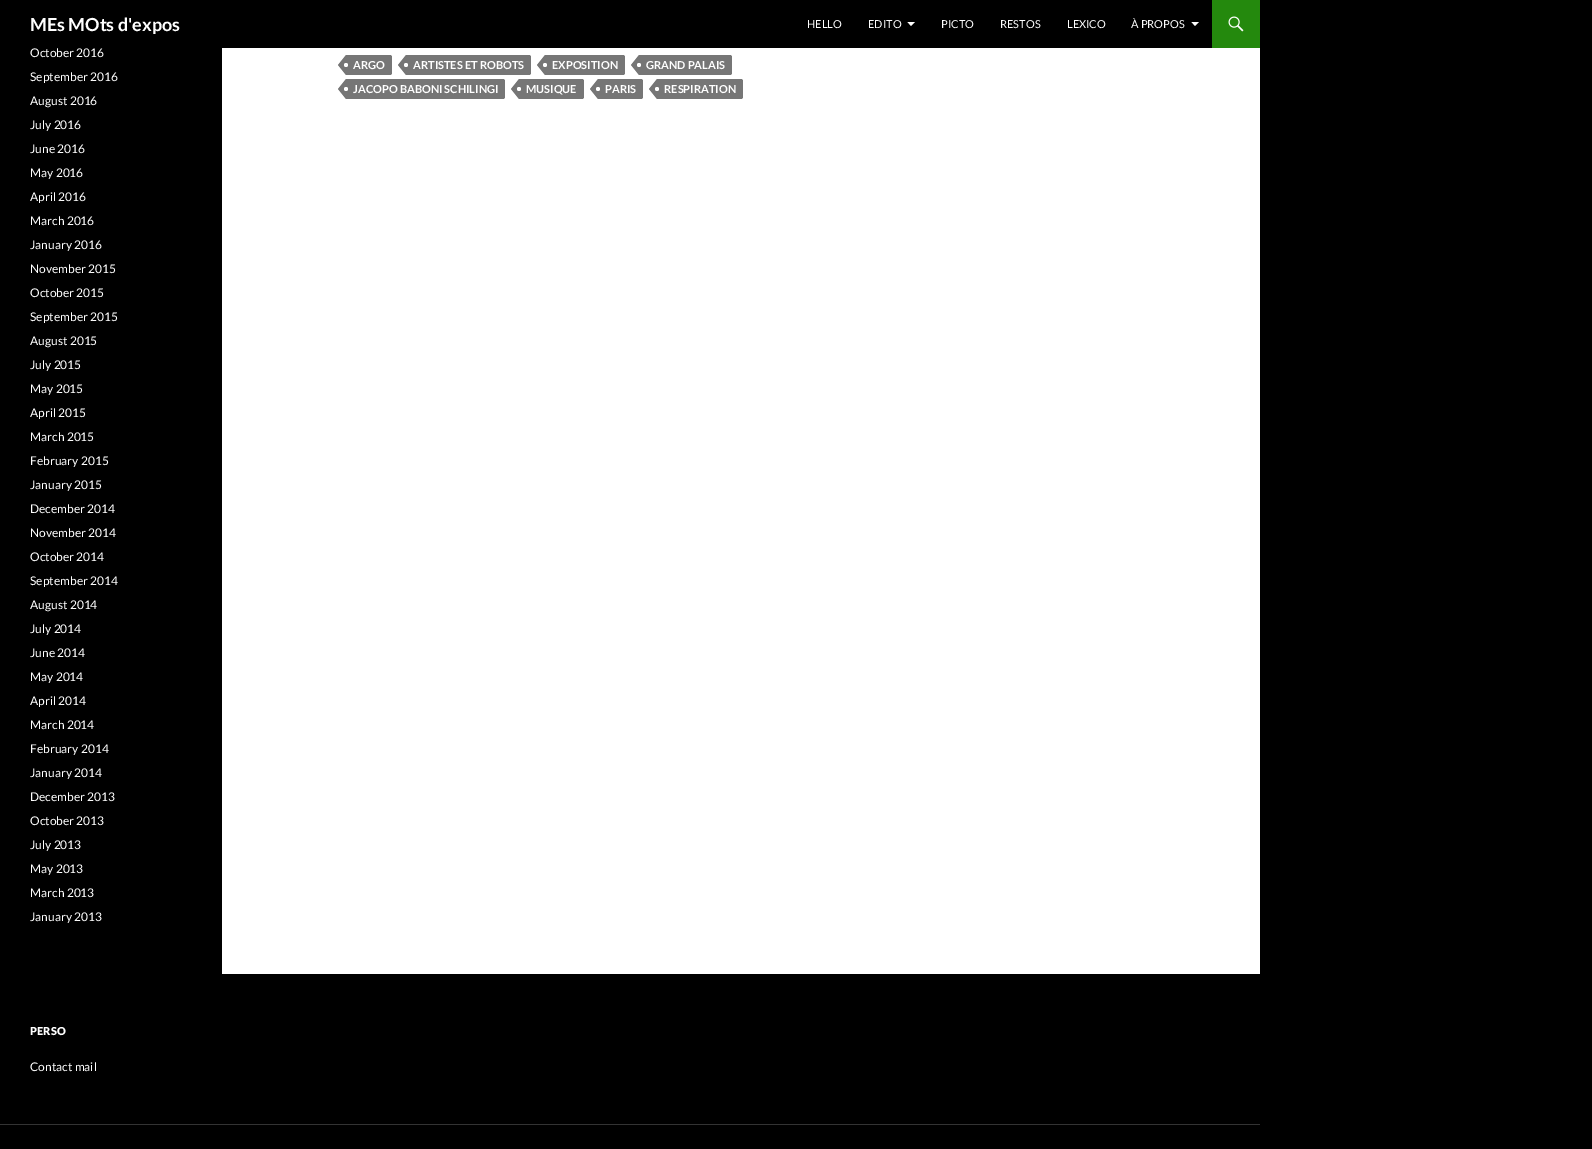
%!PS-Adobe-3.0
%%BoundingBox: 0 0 1592 1149
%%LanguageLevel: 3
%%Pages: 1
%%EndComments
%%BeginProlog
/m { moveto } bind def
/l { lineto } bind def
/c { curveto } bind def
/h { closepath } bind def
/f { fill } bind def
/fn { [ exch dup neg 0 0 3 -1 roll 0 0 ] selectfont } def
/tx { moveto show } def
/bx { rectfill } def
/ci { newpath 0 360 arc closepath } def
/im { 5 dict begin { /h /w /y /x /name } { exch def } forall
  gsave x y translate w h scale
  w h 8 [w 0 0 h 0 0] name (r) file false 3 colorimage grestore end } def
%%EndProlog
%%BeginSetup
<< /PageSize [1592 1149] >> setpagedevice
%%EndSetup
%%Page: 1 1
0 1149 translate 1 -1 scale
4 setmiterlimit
0 setgray
0 0 1592 1149 bx
1 setgray
222 48 1038 926 bx
/Lato-Bold 18 fn
(MEs MOts d'expos) 30 31 tx
/Lato-Regular 11 fn
(HELLO) 807 28 tx
(EDITO) 868 28 tx
907.5 22 m 911 26 l 915 22 l h f
(PICTO) 941 28 tx
(RESTOS) 1000 28 tx
(LEXICO) 1067 28 tx
(À PROPOS) 1131 28 tx
1191.5 22 m 1195 26 l 1199 22 l h f
0.141 0.537 0.051 setrgbcolor
1212 0 48 48 bx
(image0.raw) 1228 16 16 16 im
/Lato-Regular 12 fn
1 setgray
(October 2016) 30 57 tx
(September 2016) 30 81 tx
(August 2016) 30 105 tx
(July 2016) 30 129 tx
(June 2016) 30 153 tx
(May 2016) 30 177 tx
(April 2016) 30 201 tx
(March 2016) 30 225 tx
(January 2016) 30 249 tx
(November 2015) 30 273 tx
(October 2015) 30 297 tx
(September 2015) 30 321 tx
(August 2015) 30 345 tx
(July 2015) 30 369 tx
(May 2015) 30 393 tx
(April 2015) 30 417 tx
(March 2015) 30 441 tx
(February 2015) 30 465 tx
(January 2015) 30 489 tx
(December 2014) 30 513 tx
(November 2014) 30 537 tx
(October 2014) 30 561 tx
(September 2014) 30 585 tx
(August 2014) 30 609 tx
(July 2014) 30 633 tx
(June 2014) 30 657 tx
(May 2014) 30 681 tx
(April 2014) 30 705 tx
(March 2014) 30 729 tx
(February 2014) 30 753 tx
(January 2014) 30 777 tx
(December 2013) 30 801 tx
(October 2013) 30 825 tx
(July 2013) 30 849 tx
(May 2013) 30 873 tx
(March 2013) 30 897 tx
(January 2013) 30 921 tx
0.463 setgray
346 55 m 390 55 l 391 55 392 56 392 57 c 392 73 l 392 74 391 75 390 75 c 346 75 l h f
346 55 m 346 75 l 338 65 l h f
/Lato-Bold 11 fn
1 setgray
(ARGO) 353 69 tx
346 65 2 ci f
0.463 setgray
406 55 m 529 55 l 530 55 531 56 531 57 c 531 73 l 531 74 530 75 529 75 c 406 75 l h f
406 55 m 406 75 l 398 65 l h f
1 setgray
(ARTISTES ET ROBOTS) 413 69 tx
406 65 2 ci f
0.463 setgray
545 55 m 623 55 l 624 55 625 56 625 57 c 625 73 l 625 74 624 75 623 75 c 545 75 l h f
545 55 m 545 75 l 537 65 l h f
1 setgray
(EXPOSITION) 552 69 tx
545 65 2 ci f
0.463 setgray
639 55 m 730 55 l 731 55 732 56 732 57 c 732 73 l 732 74 731 75 730 75 c 639 75 l h f
639 55 m 639 75 l 631 65 l h f
1 setgray
(GRAND PALAIS) 646 69 tx
639 65 2 ci f
0.463 setgray
346 79 m 503 79 l 504 79 505 80 505 81 c 505 97 l 505 98 504 99 503 99 c 346 99 l h f
346 79 m 346 99 l 338 89 l h f
1 setgray
(JACOPO BABONI SCHILINGI) 353 93 tx
346 89 2 ci f
0.463 setgray
519 79 m 582 79 l 583 79 584 80 584 81 c 584 97 l 584 98 583 99 582 99 c 519 99 l h f
519 79 m 519 99 l 511 89 l h f
1 setgray
(MUSIQUE) 526 93 tx
519 89 2 ci f
0.463 setgray
598 79 m 641 79 l 642 79 643 80 643 81 c 643 97 l 643 98 642 99 641 99 c 598 99 l h f
598 79 m 598 99 l 590 89 l h f
1 setgray
(PARIS) 605 93 tx
598 89 2 ci f
0.463 setgray
657 79 m 741 79 l 742 79 743 80 743 81 c 743 97 l 743 98 742 99 741 99 c 657 99 l h f
657 79 m 657 99 l 649 89 l h f
1 setgray
(RESPIRATION) 664 93 tx
657 89 2 ci f
/Lato-Black 11 fn
(PERSO) 30 1035 tx
/Lato-Regular 12 fn
(Contact mail) 30 1071 tx
0.2 setgray
0 1124 1260 1 bx
showpage
%%EOF
